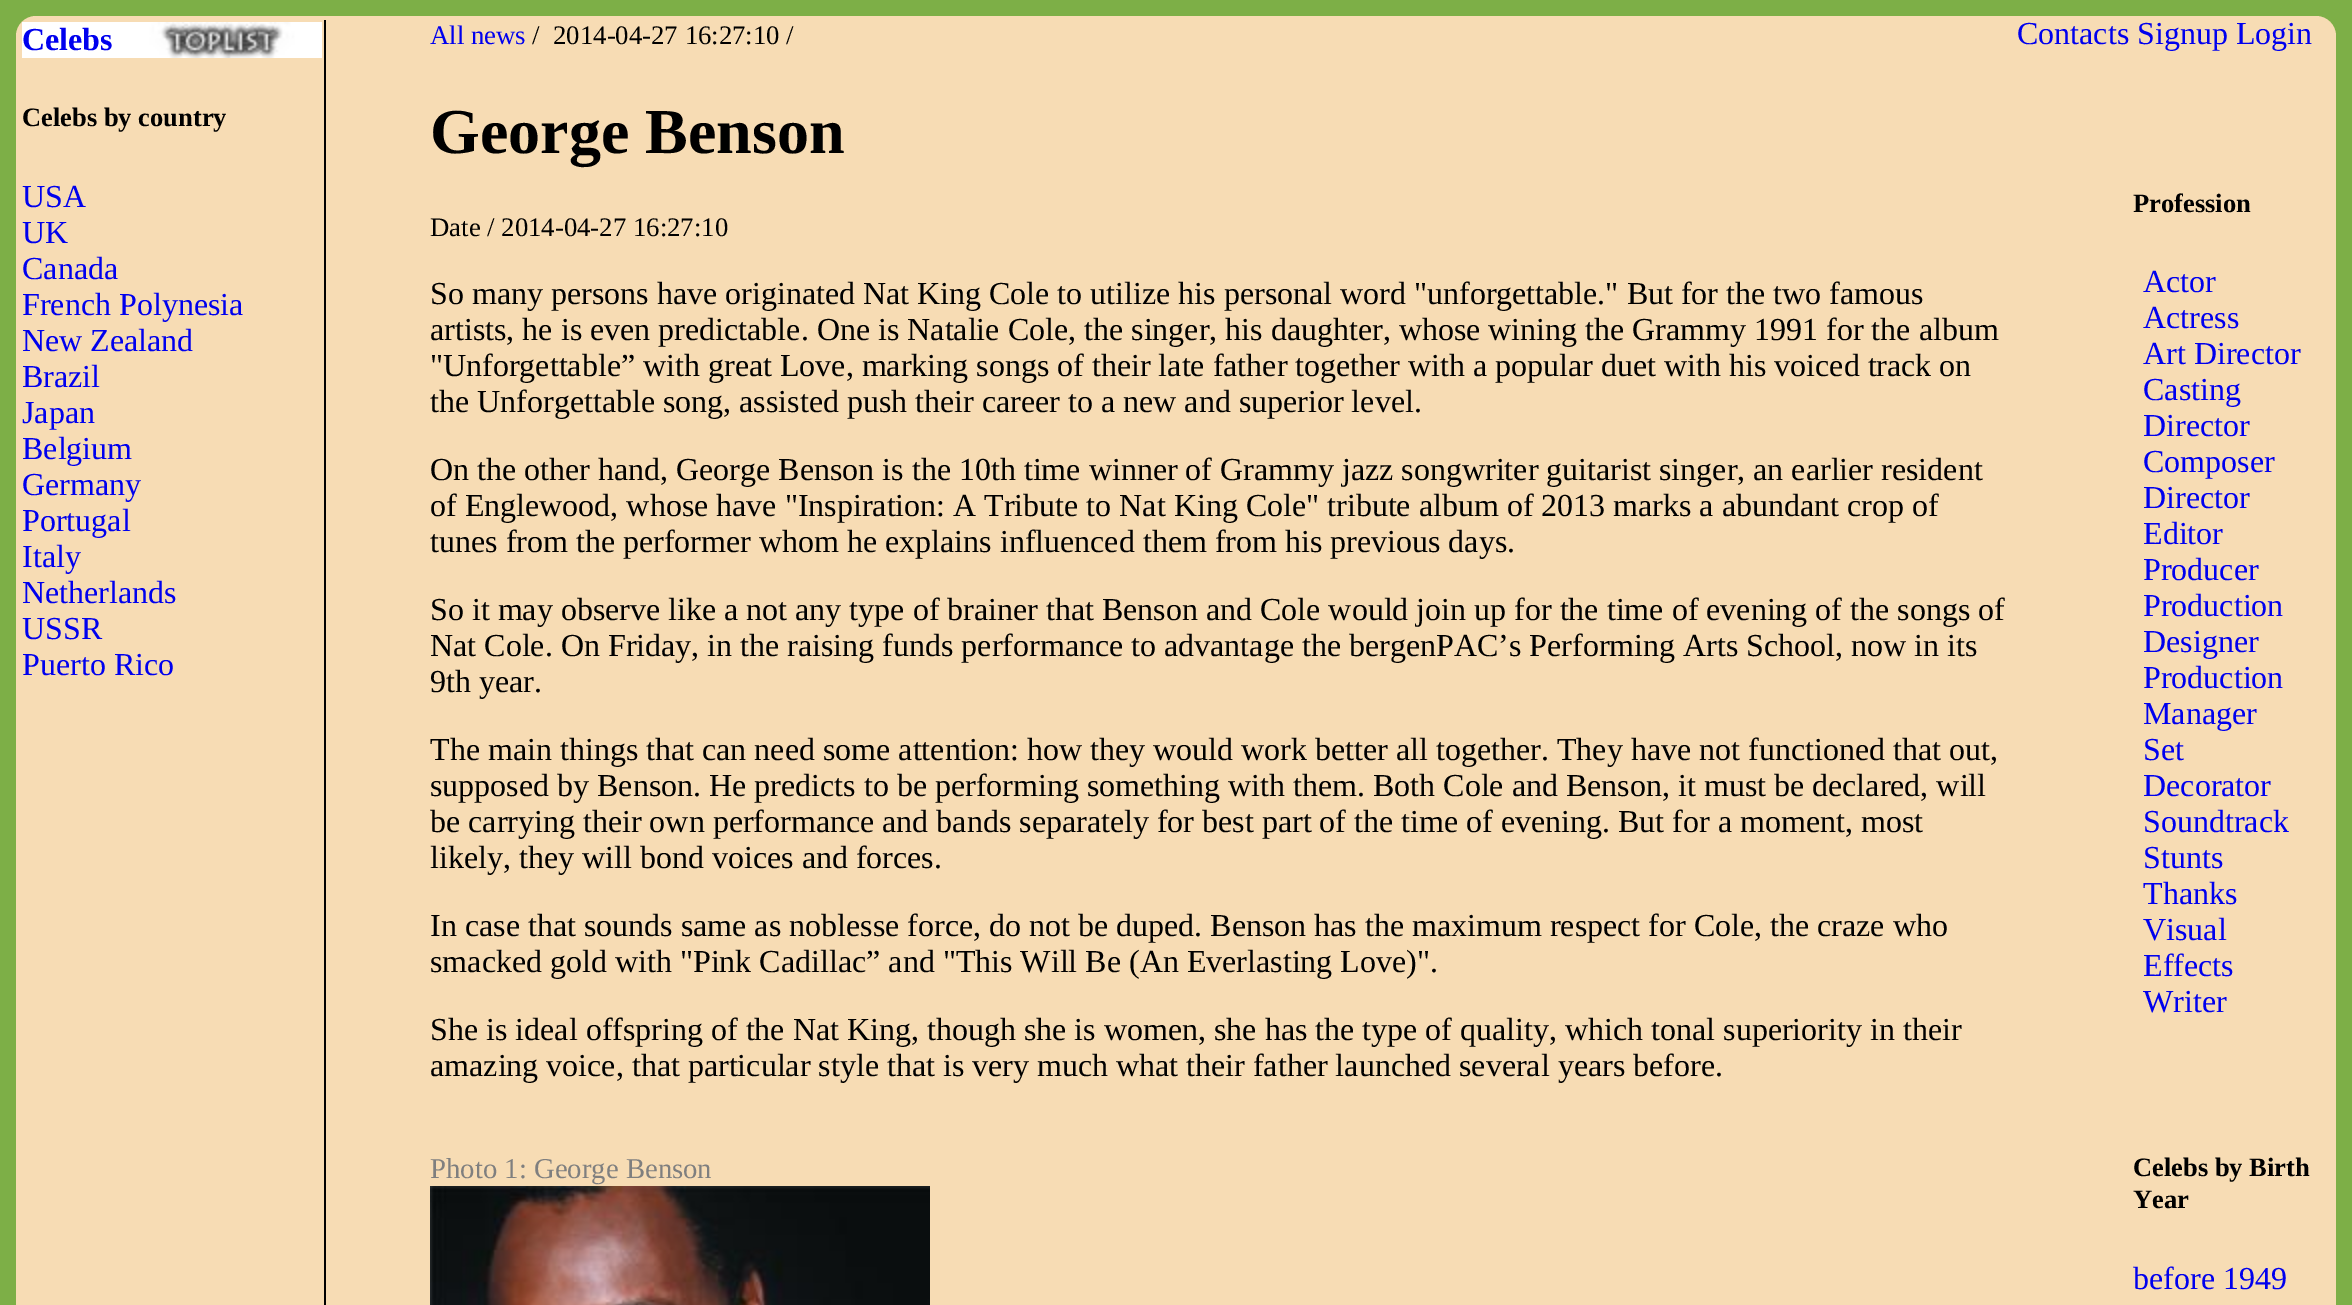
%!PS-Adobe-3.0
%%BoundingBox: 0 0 2352 1305
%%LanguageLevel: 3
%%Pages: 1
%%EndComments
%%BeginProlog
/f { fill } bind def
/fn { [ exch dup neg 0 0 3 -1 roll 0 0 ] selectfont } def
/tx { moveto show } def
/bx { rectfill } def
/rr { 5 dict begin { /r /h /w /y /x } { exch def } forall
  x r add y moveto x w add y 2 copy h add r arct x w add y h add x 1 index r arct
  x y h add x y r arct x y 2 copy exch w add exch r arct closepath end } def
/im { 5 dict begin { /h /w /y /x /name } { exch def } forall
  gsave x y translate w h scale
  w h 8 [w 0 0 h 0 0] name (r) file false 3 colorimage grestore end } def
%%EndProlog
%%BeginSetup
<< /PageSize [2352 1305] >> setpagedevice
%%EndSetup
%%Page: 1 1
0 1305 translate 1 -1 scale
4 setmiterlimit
0.49 0.686 0.278 setrgbcolor
0 0 2352 1305 bx
0.969 0.863 0.706 setrgbcolor
16 16 2320 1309 20 rr f
/LiberationSerif-Regular 32 fn
0 0 0.933 setrgbcolor
(Contacts Signup Login) 2017 44 tx
0 setgray
324 20 2 1285 bx
(image0.raw) 22 22 300 36 im
/LiberationSerif-Bold 32 fn
0 0 0.933 setrgbcolor
(Celebs) 22 50 tx
/LiberationSerif-Bold 26.5 fn
0 setgray
(Celebs by country) 22 126 tx
/LiberationSerif-Regular 32 fn
0 0 0.933 setrgbcolor
(USA) 22 207 tx
(UK) 22 243 tx
(Canada) 22 279 tx
(French Polynesia) 22 315 tx
(New Zealand) 22 351 tx
(Brazil) 22 387 tx
(Japan) 22 423 tx
(Belgium) 22 459 tx
(Germany) 22 495 tx
(Portugal) 22 531 tx
(Italy) 22 567 tx
(Netherlands) 22 603 tx
(USSR) 22 639 tx
(Puerto Rico) 22 675 tx
/LiberationSerif-Regular 26.75 fn
(All news) 430 44 tx
0 setgray
(/) 532 44 tx
(2014-04-27 16:27:10 /) 553 44 tx
/LiberationSerif-Bold 64 fn
(George Benson) 430 153 tx
/LiberationSerif-Regular 26.75 fn
(Date / 2014-04-27 16:27:10) 430 236 tx
/LiberationSerif-Regular 32 fn
(So many persons have originated Nat King Cole to utilize his personal word "unforgettable." But for the two famous) 430 304 tx
(artists, he is even predictable. One is Natalie Cole, the singer, his daughter, whose wining the Grammy 1991 for the album) 430 340 tx
("Unforgettable” with great Love, marking songs of their late father together with a popular duet with his voiced track on) 430 376 tx
(the Unforgettable song, assisted push their career to a new and superior level.) 430 412 tx
(On the other hand, George Benson is the 10th time winner of Grammy jazz songwriter guitarist singer, an earlier resident) 430 480 tx
(of Englewood, whose have "Inspiration: A Tribute to Nat King Cole" tribute album of 2013 marks a abundant crop of) 430 516 tx
(tunes from the performer whom he explains influenced them from his previous days.) 430 552 tx
(So it may observe like a not any type of brainer that Benson and Cole would join up for the time of evening of the songs of) 430 620 tx
(Nat Cole. On Friday, in the raising funds performance to advantage the bergenPAC’s Performing Arts School, now in its) 430 656 tx
(9th year.) 430 692 tx
(The main things that can need some attention: how they would work better all together. They have not functioned that out,) 430 760 tx
(supposed by Benson. He predicts to be performing something with them. Both Cole and Benson, it must be declared, will) 430 796 tx
(be carrying their own performance and bands separately for best part of the time of evening. But for a moment, most) 430 832 tx
(likely, they will bond voices and forces.) 430 868 tx
(In case that sounds same as noblesse force, do not be duped. Benson has the maximum respect for Cole, the craze who) 430 936 tx
(smacked gold with "Pink Cadillac” and "This Will Be \(An Everlasting Love\)".) 430 972 tx
(She is ideal offspring of the Nat King, though she is women, she has the type of quality, which tonal superiority in their) 430 1040 tx
(amazing voice, that particular style that is very much what their father launched several years before.) 430 1076 tx
/LiberationSerif-Regular 28.75 fn
0.498 setgray
(Photo 1: George Benson) 430 1178 tx
(image1.raw) 430 1186 500 119 im
/LiberationSerif-Bold 26.5 fn
0 setgray
(Profession) 2133 212 tx
/LiberationSerif-Regular 32 fn
0 0 0.933 setrgbcolor
(Actor) 2143 292 tx
(Actress) 2143 328 tx
(Art Director) 2143 364 tx
(Casting) 2143 400 tx
(Director) 2143 436 tx
(Composer) 2143 472 tx
(Director) 2143 508 tx
(Editor) 2143 544 tx
(Producer) 2143 580 tx
(Production) 2143 616 tx
(Designer) 2143 652 tx
(Production) 2143 688 tx
(Manager) 2143 724 tx
(Set) 2143 760 tx
(Decorator) 2143 796 tx
(Soundtrack) 2143 832 tx
(Stunts) 2143 868 tx
(Thanks) 2143 904 tx
(Visual) 2143 940 tx
(Effects) 2143 976 tx
(Writer) 2143 1012 tx
/LiberationSerif-Bold 26.5 fn
0 setgray
(Celebs by Birth) 2133 1176 tx
(Year) 2133 1208 tx
/LiberationSerif-Regular 32 fn
0 0 0.933 setrgbcolor
(before 1949) 2133 1289 tx
showpage
%%EOF
